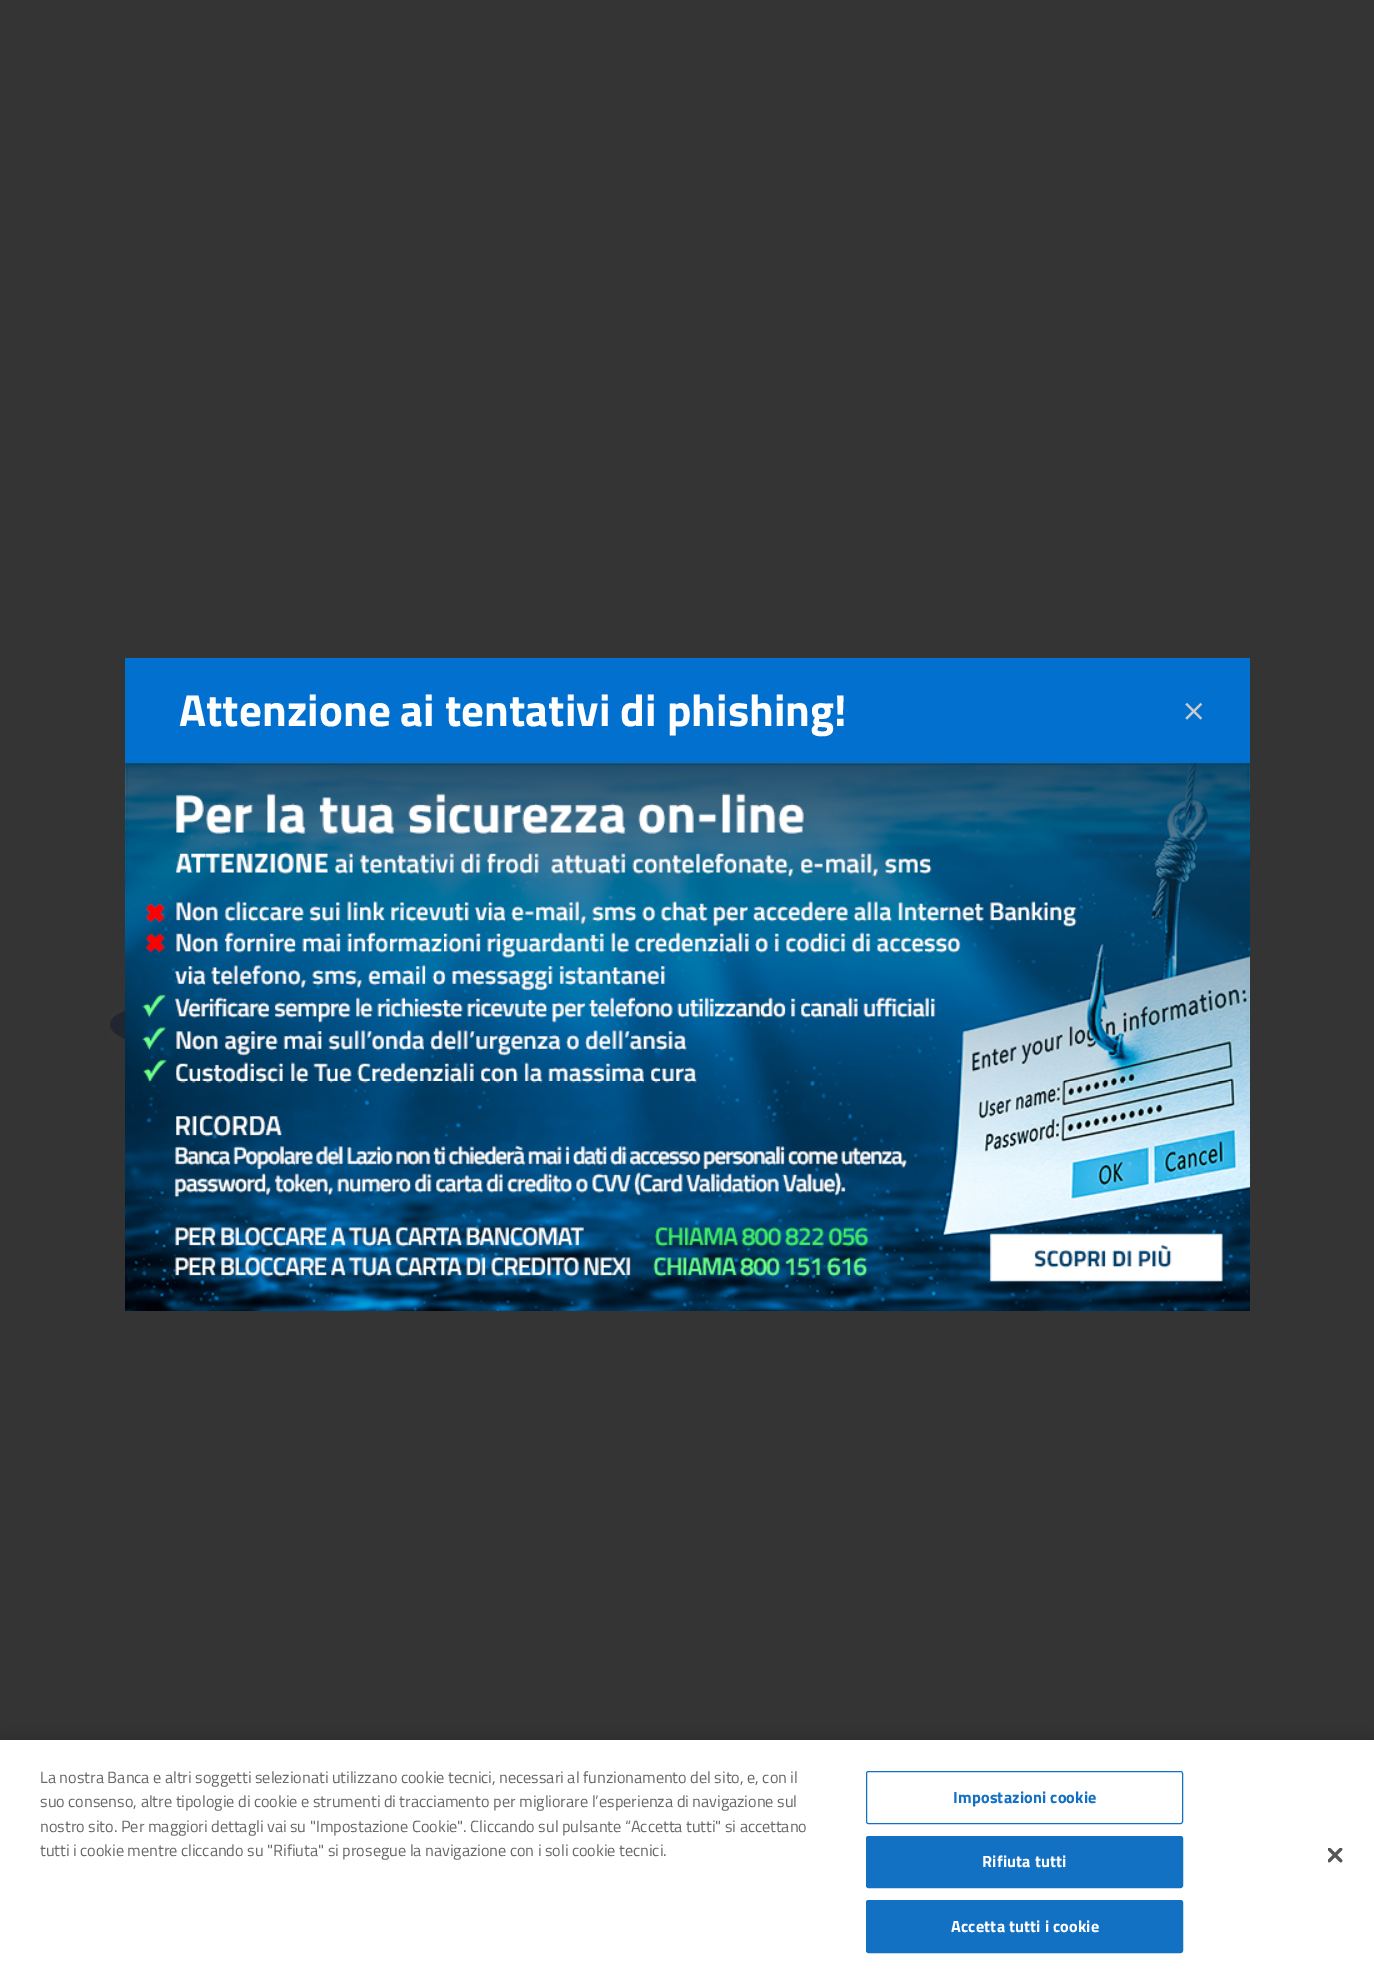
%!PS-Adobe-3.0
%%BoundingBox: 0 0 1374 1977
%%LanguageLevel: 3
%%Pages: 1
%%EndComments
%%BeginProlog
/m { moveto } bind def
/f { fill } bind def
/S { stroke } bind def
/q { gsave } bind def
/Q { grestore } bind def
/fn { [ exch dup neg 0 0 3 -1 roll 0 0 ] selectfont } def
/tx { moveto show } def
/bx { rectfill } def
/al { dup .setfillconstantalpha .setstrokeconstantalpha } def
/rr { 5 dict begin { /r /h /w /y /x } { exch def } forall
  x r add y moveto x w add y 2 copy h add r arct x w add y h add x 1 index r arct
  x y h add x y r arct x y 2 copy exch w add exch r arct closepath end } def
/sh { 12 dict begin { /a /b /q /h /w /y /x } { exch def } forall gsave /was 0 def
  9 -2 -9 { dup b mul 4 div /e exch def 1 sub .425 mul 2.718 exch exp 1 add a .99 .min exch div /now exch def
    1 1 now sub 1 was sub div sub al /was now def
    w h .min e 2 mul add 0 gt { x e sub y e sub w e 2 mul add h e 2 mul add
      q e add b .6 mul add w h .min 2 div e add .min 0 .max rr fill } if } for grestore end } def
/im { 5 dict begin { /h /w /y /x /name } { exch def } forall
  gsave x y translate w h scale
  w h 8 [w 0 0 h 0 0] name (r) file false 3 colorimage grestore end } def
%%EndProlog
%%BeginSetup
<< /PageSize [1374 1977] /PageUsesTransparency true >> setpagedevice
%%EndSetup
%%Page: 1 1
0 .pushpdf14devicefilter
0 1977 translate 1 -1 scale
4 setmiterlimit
0.204 setgray
0 0 1374 1977 bx
0.008 0.439 0.812 setrgbcolor
125 658 1125 105 bx
/TitilliumWeb-Bold 45 fn
1 setgray
(Attenzione ai tentativi di phishing!) 179 726 tx
(image0.raw) 1185 702 18 18 im
(image1.raw) 125 763 1125 548 im
(image2.raw) 110 1011 15 29 im
0 setgray
0 1740 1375 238 0 11 0.2 sh
1 setgray
0 1740 1374 237 bx
/TitilliumWeb-Regular 16.25 fn
0.412 setgray
(La nostra Banca e altri soggetti selezionati utilizzano cookie tecnici, necessari al funzionamento del sito, e, con il) 40 1783 tx
(suo consenso, altre tipologie di cookie e strumenti di tracciamento per migliorare l’esperienza di navigazione sul) 40 1807 tx
(nostro sito. Per maggiori dettagli vai su "Impostazione Cookie". Cliccando sul pulsante “Accetta tutti" si accettano) 40 1832 tx
(tutti i cookie mentre cliccando su "Rifiuta" si prosegue la navigazione con i soli cookie tecnici.) 40 1856 tx
0.075 0.443 0.765 setrgbcolor
866.5 1771.5 316 52 2 rr S
/TitilliumWeb-Bold 16.25 fn
953 1803 m 0.2 0 (Impostazioni cookie) ashow
866.5 1836.5 316 51 2 rr q f Q
S
1 setgray
982 1867 m 0.2 0 (Rifiuta tutti) ashow
0.075 0.443 0.765 setrgbcolor
866.5 1900.5 316 52 2 rr q f Q
S
1 setgray
951 1932 m 0.2 0 (Accetta tutti i cookie) ashow
(image3.raw) 1328 1848 15 15 im
.poppdf14devicefilter showpage
%%EOF
